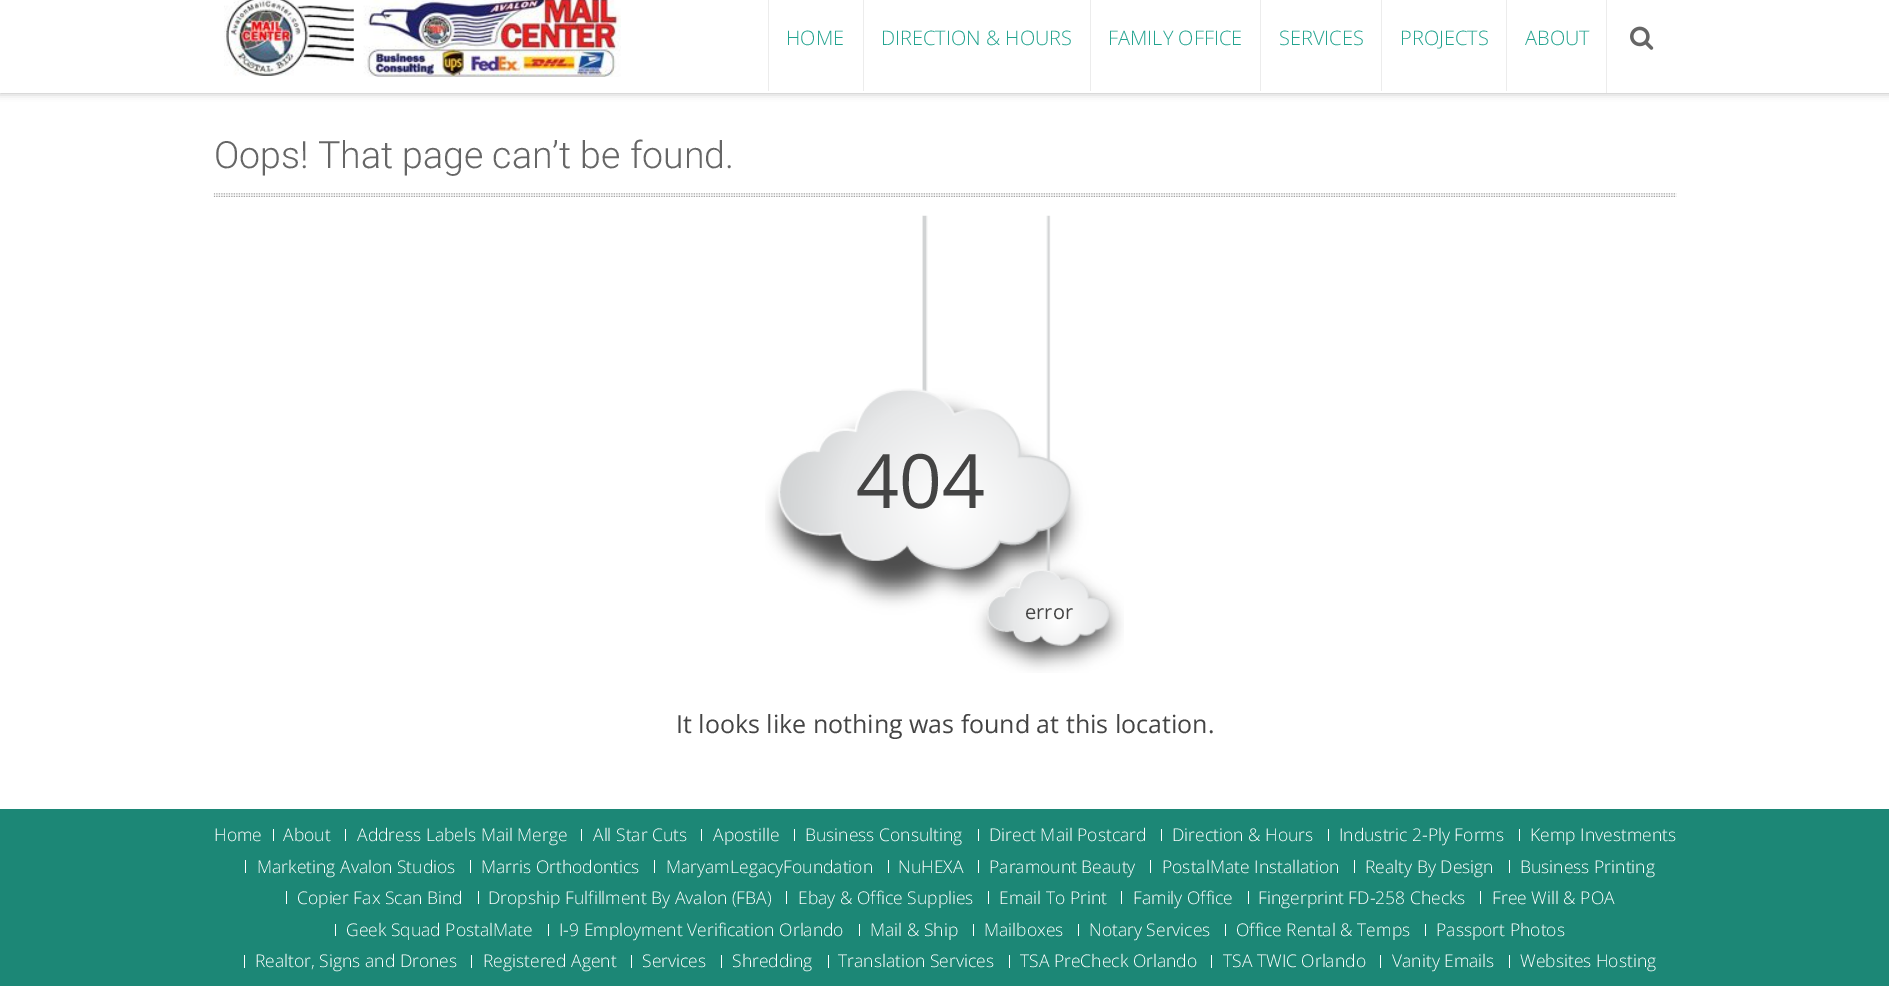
%!PS-Adobe-3.0
%%BoundingBox: 0 0 1889 986
%%LanguageLevel: 3
%%Pages: 1
%%EndComments
%%BeginProlog
/fn { [ exch dup neg 0 0 3 -1 roll 0 0 ] selectfont } def
/tx { moveto show } def
/bx { rectfill } def
/al { dup .setfillconstantalpha .setstrokeconstantalpha } def
/rr { 5 dict begin { /r /h /w /y /x } { exch def } forall
  x r add y moveto x w add y 2 copy h add r arct x w add y h add x 1 index r arct
  x y h add x y r arct x y 2 copy exch w add exch r arct closepath end } def
/sh { 12 dict begin { /a /b /q /h /w /y /x } { exch def } forall gsave /was 0 def
  9 -2 -9 { dup b mul 4 div /e exch def 1 sub .425 mul 2.718 exch exp 1 add a .99 .min exch div /now exch def
    1 1 now sub 1 was sub div sub al /was now def
    w h .min e 2 mul add 0 gt { x e sub y e sub w e 2 mul add h e 2 mul add
      q e add b .6 mul add w h .min 2 div e add .min 0 .max rr fill } if } for grestore end } def
/im { 5 dict begin { /h /w /y /x /name } { exch def } forall
  gsave x y translate w h scale
  w h 8 [w 0 0 h 0 0] name (r) file false 3 colorimage grestore end } def
%%EndProlog
%%BeginSetup
<< /PageSize [1889 986] /PageUsesTransparency true >> setpagedevice
%%EndSetup
%%Page: 1 1
0 .pushpdf14devicefilter
0 986 translate 1 -1 scale
4 setmiterlimit
1 setgray
0 0 1889 986 bx
0 setgray
0 -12 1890 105 0 4 0.3 sh
1 setgray
0 0 1889 93 bx
(image0.raw) 224 0 397 77 im
0.925 setgray
768 0 1 91 bx
/OpenSans-Light 20 fn
0.137 0.639 0.561 setrgbcolor
(HOME) 786 45 tx
0.925 setgray
863 0 1 91 bx
0.137 0.639 0.561 setrgbcolor
(DIRECTION & HOURS) 881 45 tx
0.925 setgray
1090 0 1 91 bx
0.137 0.639 0.561 setrgbcolor
(FAMILY OFFICE) 1108 45 tx
0.925 setgray
1260 0 1 91 bx
0.137 0.639 0.561 setrgbcolor
(SERVICES) 1279 45 tx
0.925 setgray
1381 0 1 91 bx
0.137 0.639 0.561 setrgbcolor
(PROJECTS) 1400 45 tx
0.925 setgray
1506 0 1 91 bx
0.137 0.639 0.561 setrgbcolor
(ABOUT) 1525 45 tx
0.925 setgray
1606 0 1 93 bx
(image1.raw) 1630 26 24 24 im
(image2.raw) 213 193 1464 4 im
/Roboto-Light 37.5 fn
0.4 setgray
(Oops! That page can’t be found.) 214 168 tx
(image3.raw) 765 215 359 458 im
/OpenSans-Regular 75 fn
0.267 setgray
(404) 856 508 tx
/OpenSans-Regular 20 fn
(error) 1025 619 tx
/OpenSans-Regular 25 fn
(It looks like nothing was found at this location.) 676 733 tx
0.11 0.529 0.463 setrgbcolor
0 809 1889 177 bx
/OpenSans-Light 17.5 fn
1 setgray
(Home) 214 841 tx
273 829 1 12 bx
(About) 283 841 tx
345 829 1 12 bx
(Address Labels Mail Merge) 357 841 tx
581 829 1 12 bx
(All Star Cuts) 593 841 tx
701 829 1 12 bx
(Apostille) 713 841 tx
794 829 1 12 bx
(Business Consulting) 805 841 tx
978 829 1 12 bx
(Direct Mail Postcard) 989 841 tx
1161 829 1 12 bx
(Direction & Hours) 1172 841 tx
1328 829 1 12 bx
(Industric 2-Ply Forms) 1339 841 tx
1519 829 1 12 bx
(Kemp Investments) 1530 841 tx
245 860 1 13 bx
(Marketing Avalon Studios) 257 873 tx
470 860 1 13 bx
(Marris Orthodontics) 481 873 tx
654 860 1 13 bx
(MaryamLegacyFoundation) 666 873 tx
888 860 1 13 bx
(NuHEXA) 898 873 tx
978 860 1 13 bx
(Paramount Beauty) 989 873 tx
1150 860 1 13 bx
(PostalMate Installation) 1162 873 tx
1354 860 1 13 bx
(Realty By Design) 1365 873 tx
1509 860 1 13 bx
(Business Printing) 1520 873 tx
286 891 1 13 bx
(Copier Fax Scan Bind) 297 904 tx
478 891 1 13 bx
(Dropship Fulfillment By Avalon \(FBA\)) 488 904 tx
786 891 1 13 bx
(Ebay & Office Supplies) 798 904 tx
988 891 1 13 bx
(Email To Print) 999 904 tx
1121 891 1 13 bx
(Family Office) 1133 904 tx
1248 891 1 13 bx
(Fingerprint FD-258 Checks) 1258 904 tx
1480 891 1 13 bx
(Free Will & POA) 1492 904 tx
335 924 1 12 bx
(Geek Squad PostalMate) 346 936 tx
548 924 1 12 bx
(I-9 Employment Verification Orlando) 559 936 tx
859 924 1 12 bx
(Mail & Ship) 870 936 tx
973 924 1 12 bx
(Mailboxes) 984 936 tx
1078 924 1 12 bx
(Notary Services) 1089 936 tx
1225 924 1 12 bx
(Office Rental & Temps) 1236 936 tx
1425 924 1 12 bx
(Passport Photos) 1436 936 tx
244 955 1 13 bx
(Realtor, Signs and Drones) 255 967 tx
471 955 1 13 bx
(Registered Agent) 483 967 tx
631 955 1 13 bx
(Services) 642 967 tx
721 955 1 13 bx
(Shredding) 732 967 tx
828 955 1 13 bx
(Translation Services) 838 967 tx
1009 955 1 13 bx
(TSA PreCheck Orlando) 1020 967 tx
1211 955 1 13 bx
(TSA TWIC Orlando) 1223 967 tx
1380 955 1 13 bx
(Vanity Emails) 1392 967 tx
1509 955 1 13 bx
(Websites Hosting) 1520 967 tx
.poppdf14devicefilter showpage
%%EOF
